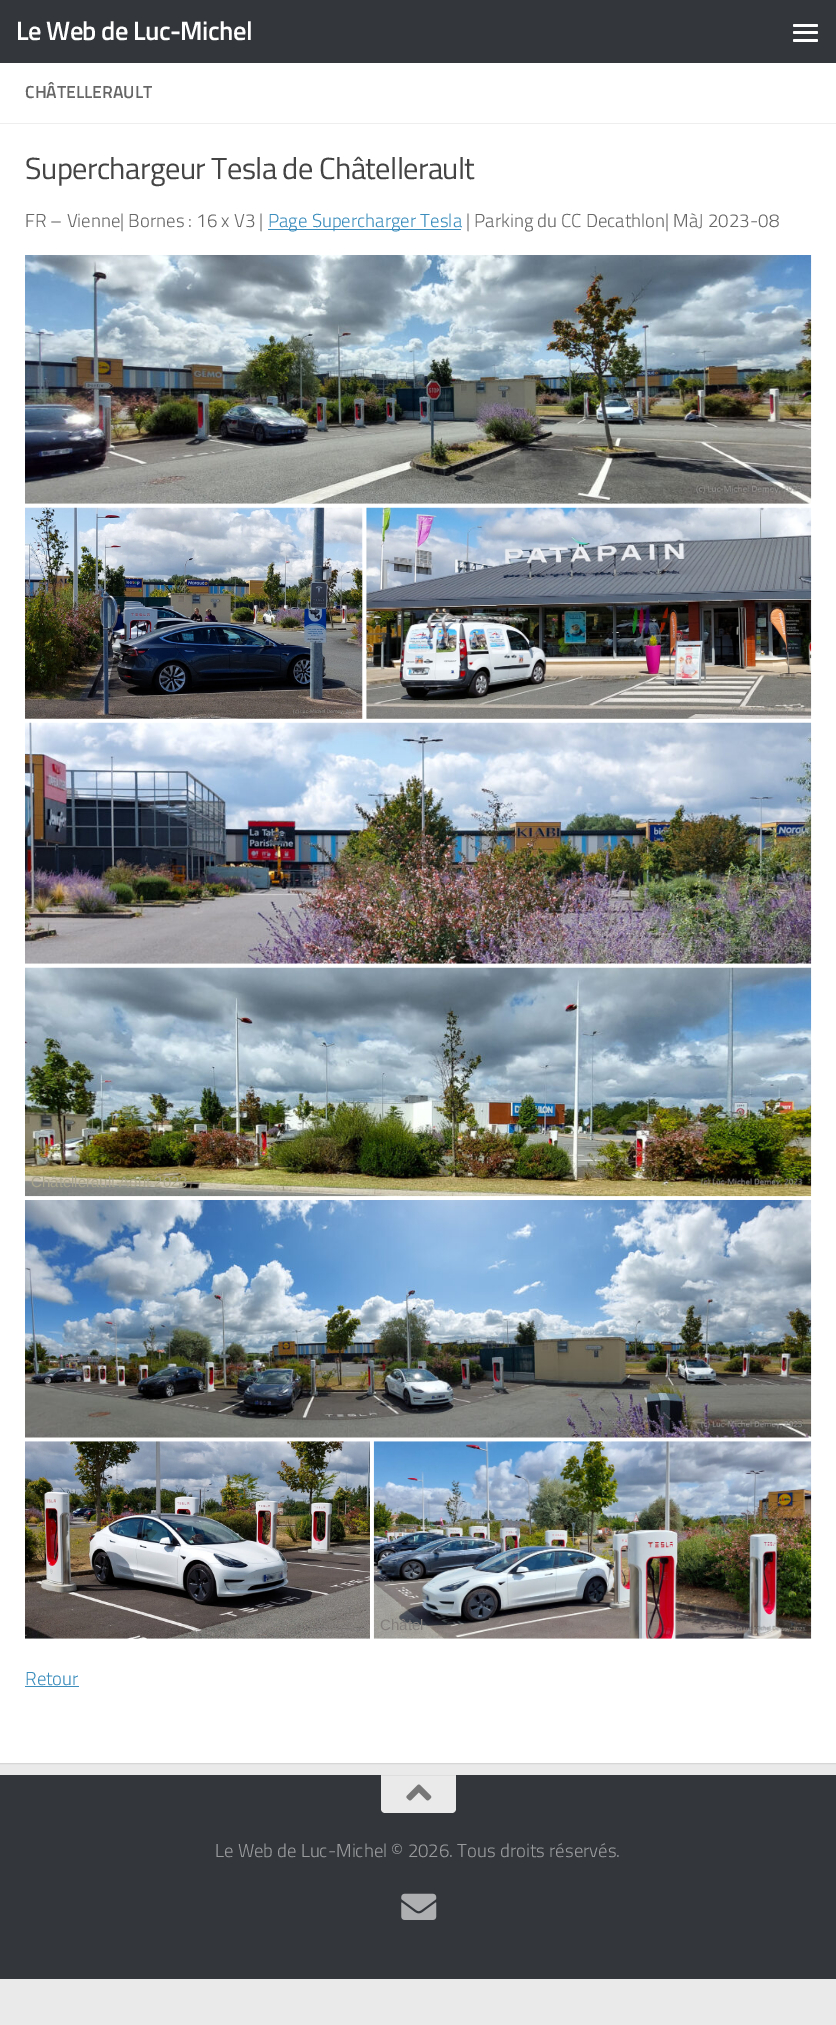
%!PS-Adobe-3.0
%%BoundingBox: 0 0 836 2025
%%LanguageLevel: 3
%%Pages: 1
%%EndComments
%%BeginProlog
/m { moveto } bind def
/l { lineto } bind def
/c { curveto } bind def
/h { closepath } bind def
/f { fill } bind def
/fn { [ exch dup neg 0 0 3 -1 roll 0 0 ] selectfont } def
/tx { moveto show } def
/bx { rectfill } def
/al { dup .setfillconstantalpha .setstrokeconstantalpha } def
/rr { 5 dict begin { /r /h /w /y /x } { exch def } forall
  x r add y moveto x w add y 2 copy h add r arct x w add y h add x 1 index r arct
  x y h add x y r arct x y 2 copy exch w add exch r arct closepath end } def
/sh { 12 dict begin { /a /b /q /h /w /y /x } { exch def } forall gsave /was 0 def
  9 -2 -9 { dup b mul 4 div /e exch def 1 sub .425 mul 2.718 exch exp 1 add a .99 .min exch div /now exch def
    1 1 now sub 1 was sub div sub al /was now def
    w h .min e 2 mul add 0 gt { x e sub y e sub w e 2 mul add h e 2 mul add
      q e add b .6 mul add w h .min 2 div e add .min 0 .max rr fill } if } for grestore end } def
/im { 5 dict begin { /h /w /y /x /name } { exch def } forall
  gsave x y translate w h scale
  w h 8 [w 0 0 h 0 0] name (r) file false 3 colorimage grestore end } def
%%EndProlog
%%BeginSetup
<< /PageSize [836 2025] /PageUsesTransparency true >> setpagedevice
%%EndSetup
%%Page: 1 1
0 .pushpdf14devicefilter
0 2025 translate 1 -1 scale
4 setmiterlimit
0.918 setgray
0 0 836 2025 bx
0 setgray
0 64 836 1700 0 0.5 0.1 sh
0.2 0.212 0.231 setrgbcolor
0 0 836 63 bx
/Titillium-SemiBold 26.5 fn
1 setgray
16 40 m -0.6 0 (Le Web de Luc-Michel) ashow
793 24 25 3 1.5 rr f
793 31 25 3 1.5 rr f
793 39 25 3 1.5 rr f
0 63 836 1700 bx
0.933 setgray
0 123 836 1 bx
/Titillium-SemiBold 17.5 fn
0.4 setgray
(CHÂTELLERAULT) 25 98 tx
/Titillium-Regular 30.5 fn
0.267 setgray
25 179 m -0.6 0 (Superchargeur Tesla de Châtellerault) ashow
/Titillium-Light 18.75 fn
0.4 setgray
(FR – Vienne| Bornes : 16 x V3 |) 25 227 tx
0.231 0.553 0.741 setrgbcolor
268 229 193 1 bx
(Page Supercharger Tesla) 268 227 tx
0.4 setgray
(| Parking du CC Decathlon| MàJ 2023-08) 466 227 tx
(image0.raw) 25 255 787 249 im
(image1.raw) 25 507 338 212 im
(image2.raw) 366 507 446 212 im
(image3.raw) 25 722 787 242 im
(image4.raw) 25 967 787 230 im
/LiberationSans-Regular 15 fn
0.659 0.643 0.545 setrgbcolor
(Châtellerault Août 2023) 31 1187 tx
(image5.raw) 25 1200 787 238 im
(image6.raw) 25 1441 345 198 im
(image7.raw) 373 1441 439 198 im
0.51 0.494 0.486 setrgbcolor
(Châtel) 380 1630 tx
/Titillium-Light 18.75 fn
0.231 0.553 0.741 setrgbcolor
(Retour) 25 1685 tx
25 1686 54 1 bx
0.2 0.212 0.231 setrgbcolor
0 1775 836 204 bx
0.918 setgray
381 1775 m 456 1775 l 456 1809 l 456 1811 454 1813 452 1813 c 385 1813 l 383 1813 381 1811 381 1809 c h f
0.871 setgray
381 1775 75 1 bx
(image8.raw) 406 1784 26 17 im
0.6 0.608 0.616 setrgbcolor
(Le Web de Luc-Michel © 2026. Tous droits réservés.) 215 1857 tx
(image9.raw) 401 1893 36 27 im
.poppdf14devicefilter showpage
%%EOF
